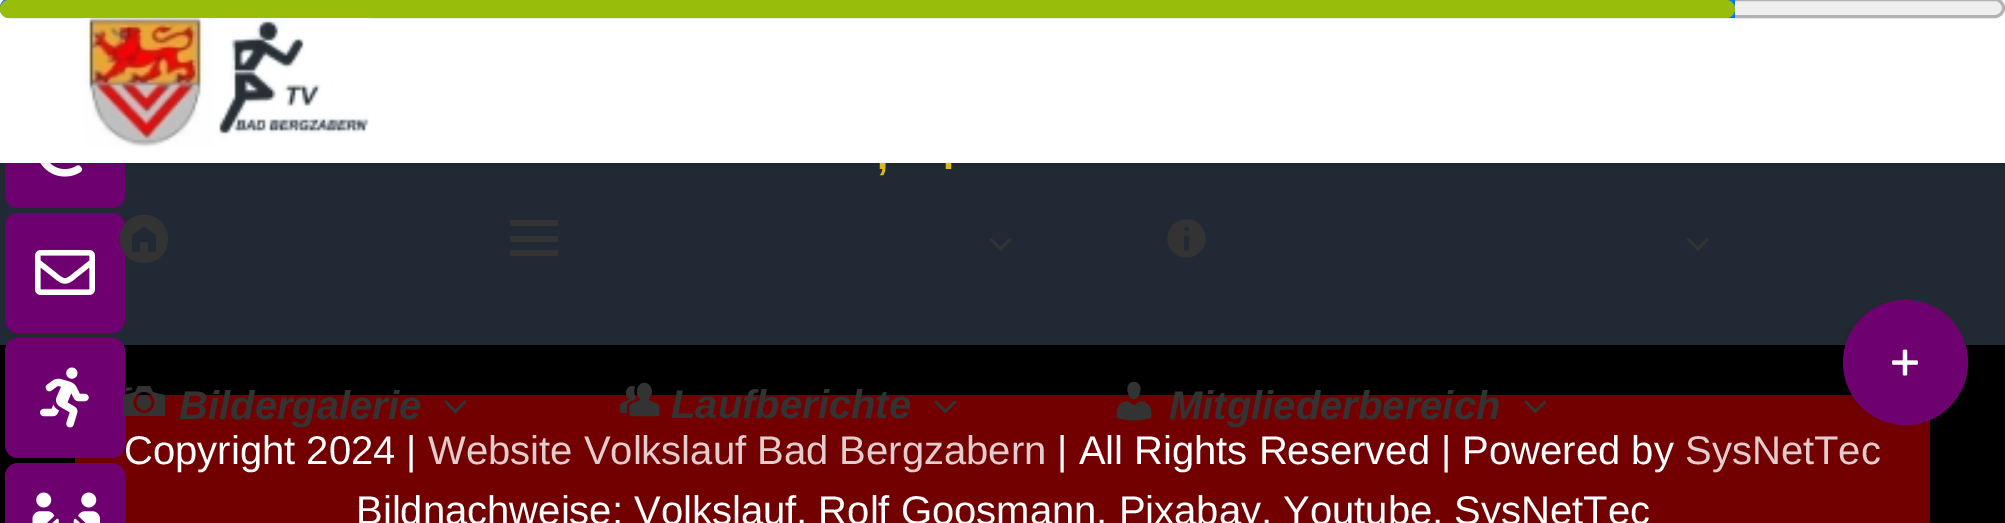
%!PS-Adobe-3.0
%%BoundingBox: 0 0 2005 523
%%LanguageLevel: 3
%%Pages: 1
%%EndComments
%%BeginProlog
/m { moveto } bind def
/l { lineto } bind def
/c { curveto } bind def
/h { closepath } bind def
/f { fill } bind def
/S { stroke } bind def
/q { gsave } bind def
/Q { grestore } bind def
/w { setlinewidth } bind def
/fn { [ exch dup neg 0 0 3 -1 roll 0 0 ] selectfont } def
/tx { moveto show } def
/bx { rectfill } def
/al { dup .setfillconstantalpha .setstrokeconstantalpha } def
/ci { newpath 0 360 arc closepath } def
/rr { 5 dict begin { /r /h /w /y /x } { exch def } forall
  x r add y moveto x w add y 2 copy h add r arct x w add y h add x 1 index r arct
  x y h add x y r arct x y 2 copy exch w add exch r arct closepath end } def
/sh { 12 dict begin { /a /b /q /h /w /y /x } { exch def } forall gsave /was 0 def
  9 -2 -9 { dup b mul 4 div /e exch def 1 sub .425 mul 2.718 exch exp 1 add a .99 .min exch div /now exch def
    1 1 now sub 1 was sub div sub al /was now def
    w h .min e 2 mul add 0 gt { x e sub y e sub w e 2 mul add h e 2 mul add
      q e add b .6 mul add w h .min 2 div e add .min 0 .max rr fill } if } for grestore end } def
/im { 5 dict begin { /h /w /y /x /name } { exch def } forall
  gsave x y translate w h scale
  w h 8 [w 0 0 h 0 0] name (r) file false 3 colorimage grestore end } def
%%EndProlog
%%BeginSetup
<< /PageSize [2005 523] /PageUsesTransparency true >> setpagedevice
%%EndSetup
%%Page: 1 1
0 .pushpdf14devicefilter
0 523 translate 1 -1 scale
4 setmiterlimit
0.129 0.161 0.204 setrgbcolor
0 0 2005 523 bx
0.431 0 0.435 setrgbcolor
5 88 120 120 13 rr f
(image0.raw) 40 163 43 14 im
0 setgray
0 3 2005 162 0 4 0.12 sh
1 setgray
0 0 2005 163 bx
0.937 setgray
1.5 -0.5 2002 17 8.5 rr q f Q
0.698 setgray
3 w
S
0 0.459 1 setrgbcolor
10 -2 m 1735 -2 l 1735 18 l 10 18 l 4.5 18 0 13.5 0 8 c 0 2.5 4.5 -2 10 -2 c h f
0.596 0.741 0.043 setrgbcolor
0 0 1735 18 9 rr f
0.431 0 0.435 setrgbcolor
5 213 120 120 13 rr f
(image1.raw) 35 250 60 45 im
0 setgray
0 345 2005 178 bx
0.447 0 0 setrgbcolor
75 395 1855 128 bx
0.431 0 0.435 setrgbcolor
5 338 120 120 13 rr f
(image2.raw) 40 367 49 61 im
5 463 120 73 13 rr f
(image3.raw) 32 492 68 31 im
/LiberationSans-Bold 40 fn
0.867 0.718 0.11 setrgbcolor
(,) 877 169 tx
(.) 943 169 tx
/LiberationSans-Regular 40 fn
1 setgray
(Copyright 2024 |) 124 464 tx
0.89 0.8 0.8 setrgbcolor
(Website Volkslauf Bad Bergzabern) 428 464 tx
1 setgray
(| All Rights Reserved | Powered by) 1057 464 tx
0.89 0.8 0.8 setrgbcolor
(SysNetTec) 1685 464 tx
1 setgray
(Bildnachweise: Volkslauf, Rolf Goosmann, Pixabay, Youtube, SysNetTec) 356 524 tx
0 setgray
1840 305 115 115 57.5 6 0.14 sh
0.431 0 0.435 setrgbcolor
1905.5 362.5 62.5 ci f
(image4.raw) 1892 349 26 27 im
(image5.raw) 84 18 285 130 im
0.2 setgray
144 215 m 112 215 112 263 144 263 c 176 263 176 215 144 215 c h 144 226 m 156 235 l 156 252 l 148 252 l 148 242 l 140 242 l 140 252 l 132 252 l 132 235 l h f
510 256 m 510 250 l 558 250 l 558 256 l h 510 220 m 558 220 l 558 226 l 510 226 l h 510 242 m 510 236 l 558 236 l 558 242 l h f
(image6.raw) 989 238 23 13 im
(image7.raw) 1167 219 39 39 im
(image8.raw) 1687 238 22 13 im
(image9.raw) 123 386 42 30 im
/LiberationSans-BoldItalic 40 fn
(Bildergalerie) 179 419 tx
(image10.raw) 444 400 23 14 im
(image11.raw) 620 382 40 35 im
(Laufberichte) 671 418 tx
(image10.raw) 934 400 23 14 im
(image12.raw) 1116 381 36 40 im
(Mitgliederbereich) 1169 419 tx
(image10.raw) 1524 400 23 14 im
.poppdf14devicefilter showpage
%%EOF
